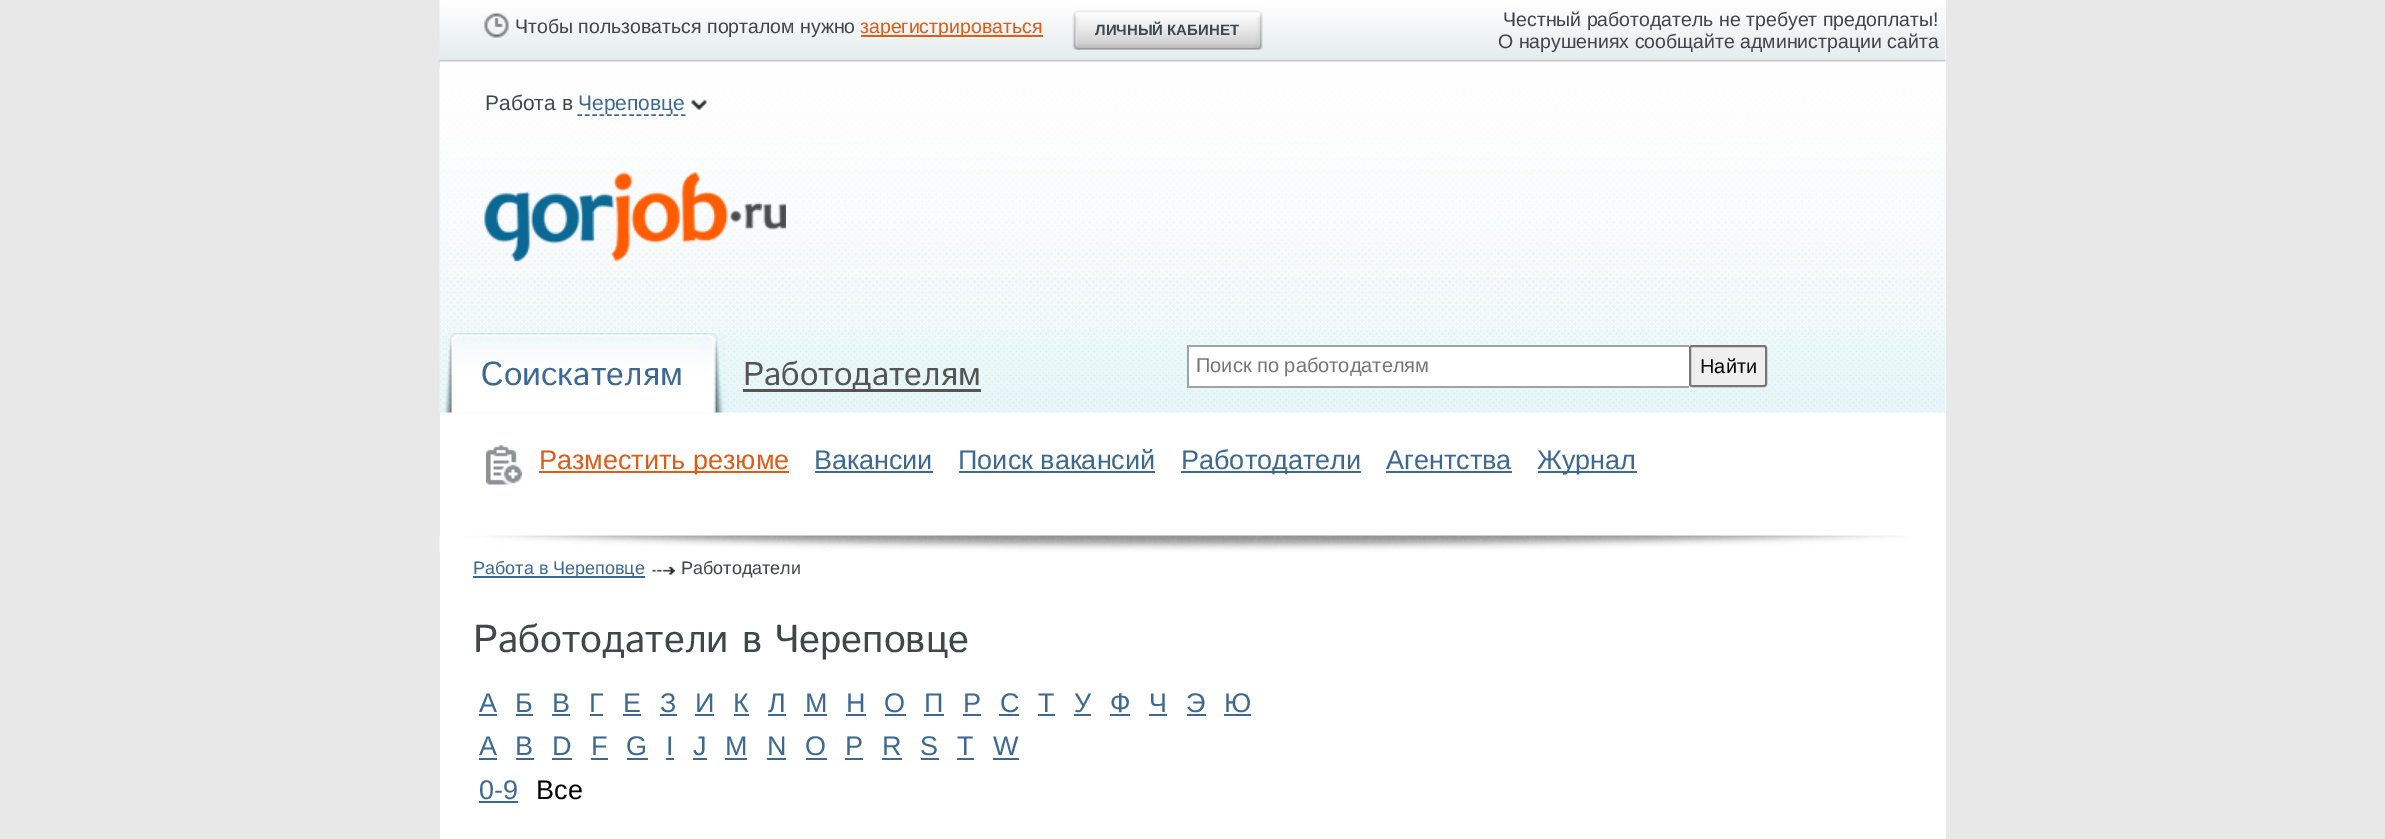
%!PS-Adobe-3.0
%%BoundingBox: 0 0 2385 839
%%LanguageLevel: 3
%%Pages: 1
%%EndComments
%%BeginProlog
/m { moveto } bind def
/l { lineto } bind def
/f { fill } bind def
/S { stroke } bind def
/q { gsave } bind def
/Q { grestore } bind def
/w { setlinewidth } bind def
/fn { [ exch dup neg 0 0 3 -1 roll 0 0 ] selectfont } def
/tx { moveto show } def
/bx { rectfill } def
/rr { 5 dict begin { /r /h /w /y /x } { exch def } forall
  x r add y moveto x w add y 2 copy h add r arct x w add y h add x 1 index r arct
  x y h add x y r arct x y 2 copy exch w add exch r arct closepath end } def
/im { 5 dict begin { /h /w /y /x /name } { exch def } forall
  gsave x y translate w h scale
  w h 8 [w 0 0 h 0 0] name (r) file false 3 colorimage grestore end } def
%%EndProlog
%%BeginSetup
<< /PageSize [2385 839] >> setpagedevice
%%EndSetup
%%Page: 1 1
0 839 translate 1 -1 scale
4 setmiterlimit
0.91 setgray
0 0 2385 839 bx
1 setgray
440 0 1506 839 bx
(image0.raw) 439 0 1507 62 im
(image1.raw) 484 13 25 25 im
/LiberationSans-Regular 19.5 fn
0.255 0.275 0.294 setrgbcolor
(Чтобы пользоваться порталом нужно) 515 33 tx
0.867 0.361 0.086 setrgbcolor
861 35 182 2 bx
(зарегистрироваться) 860 33 tx
(image2.raw) 1072 10 8 40 im
(image3.raw) 1078 10 185 40 im
/LiberationSans-Bold 15 fn
0.255 0.275 0.294 setrgbcolor
(ЛИЧНЫЙ КАБИНЕТ) 1095 35 tx
/LiberationSans-Regular 19.5 fn
(Честный работодатель не требует предоплаты!) 1503 26 tx
(О нарушениях сообщайте администрации сайта) 1498 48 tx
(image4.raw) 439 67 1507 263 im
/LiberationSans-Regular 21 fn
(Работа в) 485 110 tx
0.235 0.408 0.569 setrgbcolor
1.5 w
[4.5 2.9] 0 setdash
577.5 115 m 685.5 115 l S
(Череповце) 578 110 tx
(image5.raw) 691 99 16 11 im
(image6.raw) 484 172 302 90 im
(image7.raw) 439 330 1507 83 im
(image8.raw) 444 333 18 80 im
(image9.raw) 462 333 263 80 im
/IstokWeb-Regular 33 fn
(Соискателям) 481 385 tx
0.333 setgray
743 389 238 3 bx
(Работодателям) 743 385 tx
1 setgray
1189 347 500 39 bx
0.627 0.635 0.647 setrgbcolor
1187 345 502 2 bx
1187 386 502 2 bx
1187 345 2 42 bx
/LiberationSans-Regular 20 fn
0.459 setgray
(Поиск по работодателям) 1196 372 tx
0.937 setgray
1690 346 76 40 2 rr q f Q
0.463 setgray
2 w
[] 0 setdash
S
0 setgray
(Найти) 1700 373 tx
(image10.raw) 439 535 1468 17 im
(image11.raw) 486 445 36 40 im
0.867 0.361 0.086 setrgbcolor
539 471 250 2 bx
/LiberationSans-Regular 27 fn
(Разместить резюме) 539 469 tx
0.235 0.408 0.569 setrgbcolor
(Вакансии) 814 469 tx
0.239 0.412 0.573 setrgbcolor
815 471 118 2 bx
0.235 0.408 0.569 setrgbcolor
(Поиск вакансий) 958 469 tx
0.239 0.412 0.573 setrgbcolor
959 471 196 2 bx
1181 471 180 2 bx
0.235 0.408 0.569 setrgbcolor
(Работодатели) 1181 469 tx
(Агентства) 1386 469 tx
0.239 0.412 0.573 setrgbcolor
1386 471 126 2 bx
1538 471 99 2 bx
0.235 0.408 0.569 setrgbcolor
(Журнал) 1537 469 tx
473 576 172 2 bx
/LiberationSans-Regular 18 fn
(Работа в Череповце) 473 574 tx
(image12.raw) 652 566 23 9 im
0.255 0.275 0.294 setrgbcolor
(Работодатели) 681 574 tx
/IstokWeb-Regular 39 fn
(Работодатели в Череповце) 473 652 tx
/LiberationSans-Regular 27 fn
0.235 0.408 0.569 setrgbcolor
(А) 479 712 tx
479 714 18 2 bx
(Б) 515 712 tx
516 714 17 2 bx
(В) 552 712 tx
552 714 18 2 bx
(Г) 589 712 tx
590 714 13 2 bx
(Е) 623 712 tx
623 714 18 2 bx
(З) 660 712 tx
660 714 17 2 bx
(И) 695 712 tx
695 714 19 2 bx
(К) 733 712 tx
734 714 15 2 bx
(Л) 768 712 tx
768 714 18 2 bx
(М) 805 712 tx
804 714 23 2 bx
(Н) 846 712 tx
846 714 20 2 bx
(О) 884 712 tx
885 714 21 2 bx
(П) 924 712 tx
924 714 20 2 bx
(Р) 963 712 tx
963 714 18 2 bx
(С) 1000 712 tx
999 714 20 2 bx
(Т) 1038 712 tx
1038 714 17 2 bx
(У) 1074 712 tx
1074 714 17 2 bx
(Ф) 1110 712 tx
1110 714 20 2 bx
(Ч) 1149 712 tx
1149 714 18 2 bx
(Э) 1186 712 tx
1187 714 19 2 bx
(Ю) 1224 712 tx
1224 714 27 2 bx
(A) 479 755 tx
479 758 18 2 bx
(B) 515 755 tx
516 758 18 2 bx
(D) 552 755 tx
552 758 20 2 bx
(F) 591 755 tx
591 758 17 2 bx
(G) 626 755 tx
627 758 21 2 bx
(I) 666 755 tx
666 758 8 2 bx
(J) 693 755 tx
693 758 14 2 bx
(M) 725 755 tx
725 758 22 2 bx
(N) 767 755 tx
767 758 19 2 bx
(O) 805 755 tx
806 758 21 2 bx
(P) 845 755 tx
845 758 18 2 bx
(R) 882 755 tx
882 758 20 2 bx
(S) 920 755 tx
921 758 18 2 bx
(T) 957 755 tx
957 758 17 2 bx
(W) 993 755 tx
993 758 26 2 bx
(0-9) 479 799 tx
479 801 39 2 bx
0 setgray
(Все) 536 799 tx
showpage
%%EOF
